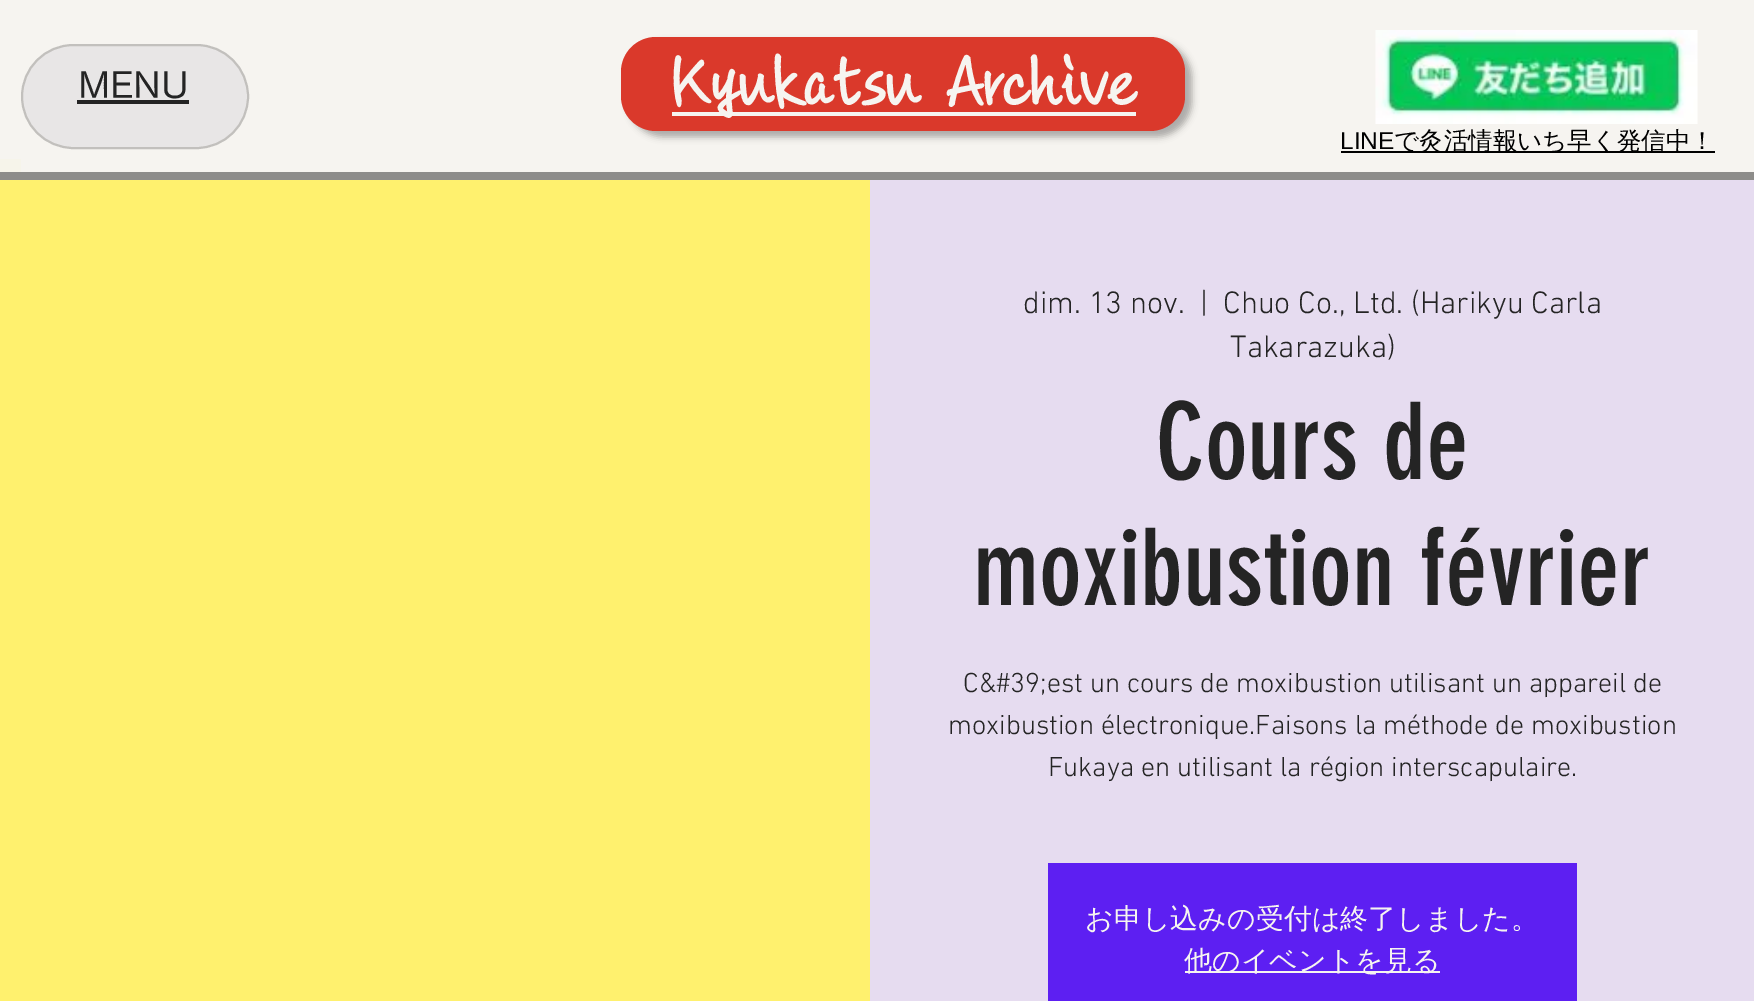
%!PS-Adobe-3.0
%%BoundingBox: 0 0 1754 1001
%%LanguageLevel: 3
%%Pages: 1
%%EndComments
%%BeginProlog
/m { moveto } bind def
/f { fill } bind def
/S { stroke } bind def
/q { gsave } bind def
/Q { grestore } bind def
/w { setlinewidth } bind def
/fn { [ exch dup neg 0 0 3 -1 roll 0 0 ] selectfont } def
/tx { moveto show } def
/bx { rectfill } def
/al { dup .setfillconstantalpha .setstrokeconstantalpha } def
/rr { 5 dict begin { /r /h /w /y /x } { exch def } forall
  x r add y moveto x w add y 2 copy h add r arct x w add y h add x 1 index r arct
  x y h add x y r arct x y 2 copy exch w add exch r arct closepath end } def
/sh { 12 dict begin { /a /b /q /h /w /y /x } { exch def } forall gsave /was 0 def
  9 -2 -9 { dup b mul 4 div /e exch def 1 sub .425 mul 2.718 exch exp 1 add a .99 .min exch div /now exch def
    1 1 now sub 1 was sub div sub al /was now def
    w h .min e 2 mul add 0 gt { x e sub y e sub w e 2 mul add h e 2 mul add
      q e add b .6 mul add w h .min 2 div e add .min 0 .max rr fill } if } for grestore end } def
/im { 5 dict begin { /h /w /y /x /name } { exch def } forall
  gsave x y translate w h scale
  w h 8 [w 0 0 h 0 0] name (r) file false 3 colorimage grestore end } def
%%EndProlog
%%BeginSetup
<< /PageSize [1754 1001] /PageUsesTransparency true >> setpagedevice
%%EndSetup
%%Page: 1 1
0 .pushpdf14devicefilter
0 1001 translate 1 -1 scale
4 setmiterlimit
0.965 0.957 0.941 setrgbcolor
0 0 1754 1001 bx
0 setgray
628 42 564 95 35 3.5 0.3 sh
0.855 0.224 0.169 setrgbcolor
621 37 564 94 35 rr f
(image0.raw) 1375 30 323 94 im
0.91 0.902 0.902 setrgbcolor
22 45 226 103 51.5 rr q f Q
0.761 0.753 0.741 setrgbcolor
2 w
S
/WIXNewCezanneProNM-Medium 35 fn
0.141 setgray
(MENU) 78 98 tx
77 100 112 4 bx
0.965 0.957 0.941 setrgbcolor
672 112 464 4 bx
/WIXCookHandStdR-Bold 66.5 fn
673 109 m -1.3 0 (Kyukatsu Archive) ashow
/LiberationSans-Regular 24.5 fn
0 setgray
(LINE) 1340 149 tx
1341 151 374 2 bx
/WenQuanYiZenHei-Medium 24.5 fn
(で灸活情報いち早く発信中！) 1394 149 tx
0.553 0.549 0.541 setrgbcolor
0 172 1754 8 bx
1 0.945 0.431 setrgbcolor
0 180 870 821 bx
0.965 0.957 0.918 setrgbcolor
0 159 21 13 bx
0.902 0.863 0.941 setrgbcolor
870 180 884 821 bx
/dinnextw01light-Light 31.5 fn
0.141 setgray
(dim. 13 nov.) 1023 313 tx
(|) 1200 313 tx
(Chuo Co., Ltd. \(Harikyu Carla) 1223 313 tx
(Takarazuka\)) 1230 357 tx
/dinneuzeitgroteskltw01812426-Regular 105 fn
(Cours de) 1156 479 tx
(moxibustion février) 973 605 tx
/dinnextw01light-Light 28 fn
(C&#39;est un cours de moxibustion utilisant un appareil de) 963 692 tx
(moxibustion électronique.Faisons la méthode de moxibustion) 948 734 tx
(Fukaya en utilisant la région interscapulaire.) 1048 776 tx
0.365 0.122 0.949 setrgbcolor
1048 863 529 138 bx
/WenQuanYiZenHei-Medium 28 fn
0.965 0.957 0.941 setrgbcolor
(お申し込みの受付は終了しました。) 1085 928 tx
1185 971 255 2 bx
(他のイベントを見る) 1184 970 tx
.poppdf14devicefilter showpage
%%EOF
